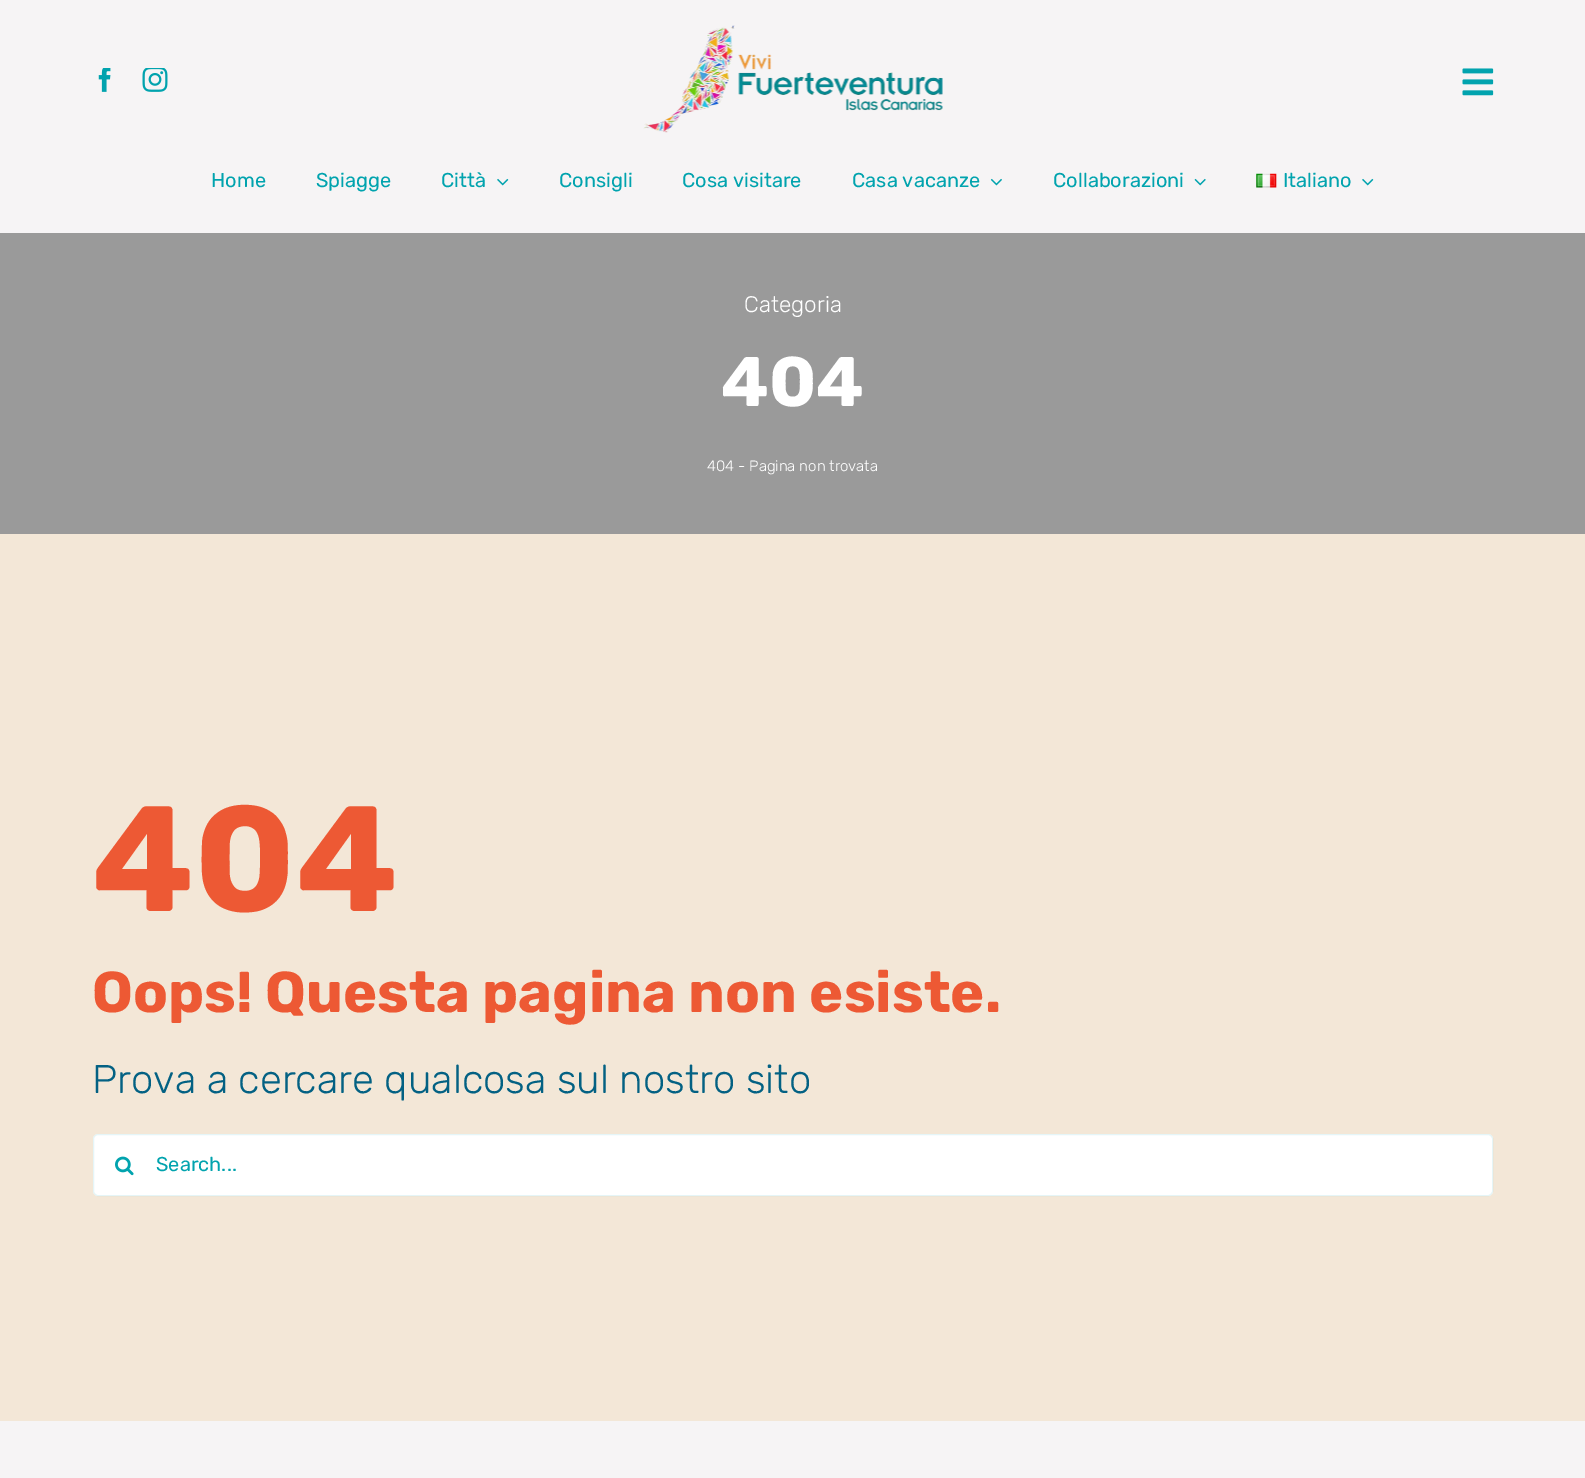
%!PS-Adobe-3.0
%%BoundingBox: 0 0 1585 1478
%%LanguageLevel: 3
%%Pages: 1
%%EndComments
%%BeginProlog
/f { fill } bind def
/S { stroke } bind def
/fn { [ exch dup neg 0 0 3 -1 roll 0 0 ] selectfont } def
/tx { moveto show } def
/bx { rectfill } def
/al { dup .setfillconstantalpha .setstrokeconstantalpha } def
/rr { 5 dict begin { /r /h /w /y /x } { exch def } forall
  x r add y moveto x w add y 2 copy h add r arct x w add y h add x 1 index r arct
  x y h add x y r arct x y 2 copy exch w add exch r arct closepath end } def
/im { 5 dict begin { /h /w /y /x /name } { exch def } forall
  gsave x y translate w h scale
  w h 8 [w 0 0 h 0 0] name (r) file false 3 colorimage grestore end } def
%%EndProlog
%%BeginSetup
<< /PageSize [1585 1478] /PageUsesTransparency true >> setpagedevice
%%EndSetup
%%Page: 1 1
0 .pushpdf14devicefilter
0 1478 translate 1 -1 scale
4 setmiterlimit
0.604 setgray
0 0 1585 1478 bx
0.965 0.957 0.961 setrgbcolor
0 0 1585 233 bx
(image0.raw) 98 68 13 24 im
(image1.raw) 142 68 26 24 im
(image2.raw) 643 25 300 108 im
(image3.raw) 1462 68 32 28 im
/Rubik-Regular 20 fn
0.004 0.639 0.682 setrgbcolor
(Home) 211 187 tx
(Spiagge) 316 187 tx
(Città) 441 187 tx
(image4.raw) 497 178 12 8 im
(Consigli) 559 187 tx
(Cosa visitare) 682 187 tx
(Casa vacanze) 852 187 tx
(image5.raw) 990 178 12 8 im
(Collaborazioni) 1053 187 tx
(image6.raw) 1194 178 12 8 im
(image7.raw) 1256 173 21 15 im
(Italiano) 1283 187 tx
(image4.raw) 1362 178 12 8 im
/Rubik-Light 22.5 fn
1 setgray
(Categoria) 744 312 tx
/Rubik-Bold 70 fn
(404) 721 406 tx
/Rubik-Light 15 fn
(404 - Pagina non trovata) 707 471 tx
0.953 0.906 0.843 setrgbcolor
0 534 1585 887 bx
/Rubik-Bold 150 fn
0.929 0.349 0.204 setrgbcolor
(404) 92 911 tx
/Rubik-Bold 57.5 fn
(Oops! Questa pagina non esiste.) 92 1012 tx
/Rubik-Light 40 fn
0.012 0.38 0.514 setrgbcolor
(Prova a cercare qualcosa sul nostro sito) 92 1093 tx
1 setgray
93 1134 1400 62 5 rr f
0.1 al
0.004 0.631 0.678 setrgbcolor
93.5 1134.5 1399 61 4.5 rr S
1 al
(image8.raw) 115 1156 19 20 im
/Rubik-Regular 20 fn
0.004 0.639 0.682 setrgbcolor
(Search...) 156 1171 tx
0.965 0.957 0.961 setrgbcolor
0 1421 1585 57 bx
.poppdf14devicefilter showpage
%%EOF
